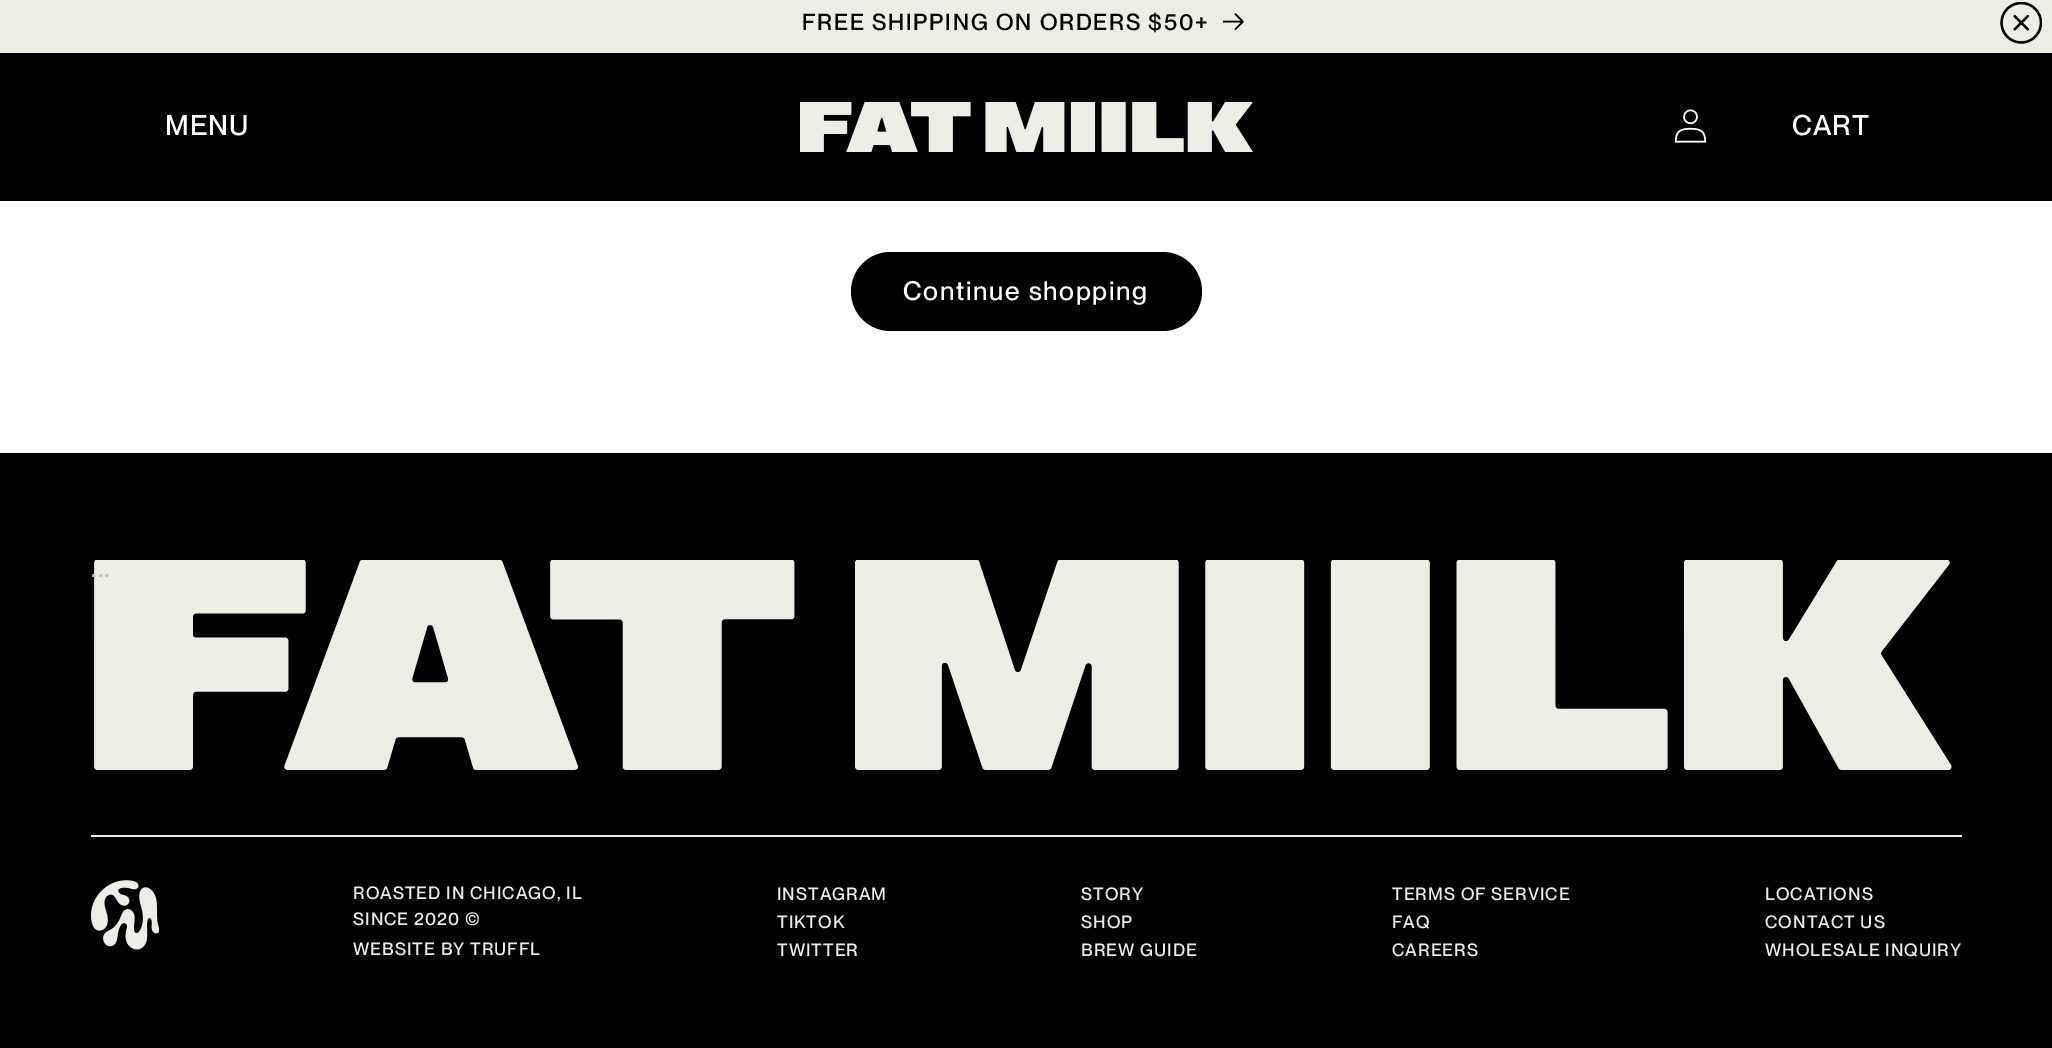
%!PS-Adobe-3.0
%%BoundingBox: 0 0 2052 1048
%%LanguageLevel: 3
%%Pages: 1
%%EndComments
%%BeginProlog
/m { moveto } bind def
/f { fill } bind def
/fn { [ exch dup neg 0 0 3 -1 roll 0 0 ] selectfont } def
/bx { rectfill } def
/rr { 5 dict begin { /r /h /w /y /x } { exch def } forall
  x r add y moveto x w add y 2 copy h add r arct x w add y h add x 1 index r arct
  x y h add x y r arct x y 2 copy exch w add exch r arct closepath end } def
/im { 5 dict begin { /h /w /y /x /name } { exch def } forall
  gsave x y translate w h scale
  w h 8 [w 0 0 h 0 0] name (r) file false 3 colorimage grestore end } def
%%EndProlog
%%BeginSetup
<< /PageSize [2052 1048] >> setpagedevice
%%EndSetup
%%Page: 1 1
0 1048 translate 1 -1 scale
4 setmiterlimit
1 setgray
0 0 2052 1048 bx
0.929 0.929 0.902 setrgbcolor
0 0 2052 53 bx
/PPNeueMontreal-Medium 22.75 fn
0 setgray
802 30 m 1.75 0 (FREE SHIPPING ON ORDERS $50+) ashow
(image0.raw) 1223 13 21 17 im
(image1.raw) 2000 2 42 42 im
0 53 2052 148 bx
/PPNeueMontreal-Medium 28 fn
1 setgray
165 135 m 1.05 0 (MENU) ashow
(image2.raw) 800 102 453 50 im
(image3.raw) 1674 109 33 34 im
1792 135 m 1.05 0 (CART) ashow
0 setgray
851 252 351 79 39.5 rr f
/PPNeueMontreal-Medium 26.25 fn
1 setgray
903 300 m 1.75 0 (Continue shopping) ashow
0 setgray
0 453 2052 595 bx
(image4.raw) 94 560 1858 210 im
/PPNeueMontreal-Medium 28 fn
0.761 0.761 0.733 setrgbcolor
91 577 m 1.05 0 (...) ashow
0.929 0.929 0.898 setrgbcolor
91 835 1871 2 bx
(image5.raw) 91 880 68 70 im
/PPNeueMontreal-Medium 17.5 fn
353 899 m 1.05 0 (ROASTED IN CHICAGO, IL) ashow
353 925 m 1.05 0 (SINCE 2020 ©) ashow
353 955 m 1.05 0 (WEBSITE BY TRUFFL) ashow
777 900 m 1.05 0 (INSTAGRAM) ashow
777 928 m 1.05 0 (TIKTOK) ashow
777 956 m 1.05 0 (TWITTER) ashow
1081 900 m 1.05 0 (STORY) ashow
1081 928 m 1.05 0 (SHOP) ashow
1081 956 m 1.05 0 (BREW GUIDE) ashow
1392 900 m 1.05 0 (TERMS OF SERVICE) ashow
1392 928 m 1.05 0 (FAQ) ashow
1392 956 m 1.05 0 (CAREERS) ashow
1765 900 m 1.05 0 (LOCATIONS) ashow
1765 928 m 1.05 0 (CONTACT US) ashow
1765 956 m 1.05 0 (WHOLESALE INQUIRY) ashow
showpage
%%EOF
